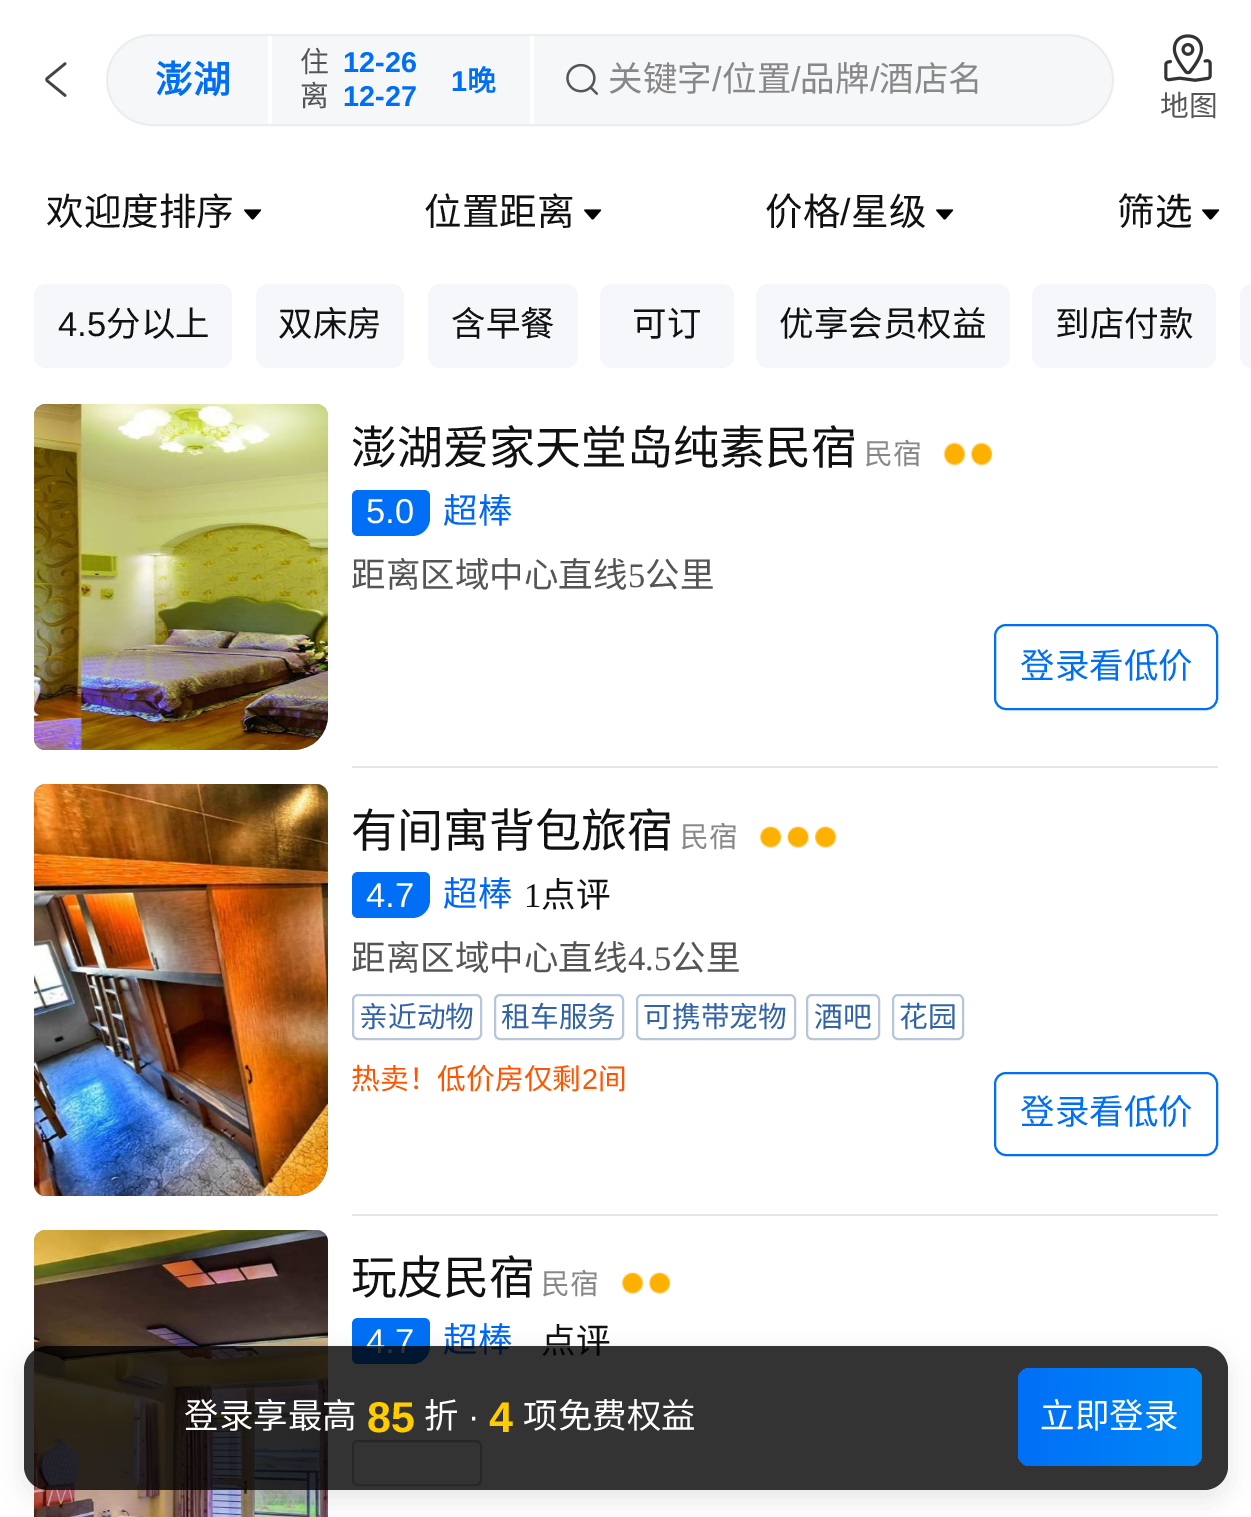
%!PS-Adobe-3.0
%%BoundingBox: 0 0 1251 1517
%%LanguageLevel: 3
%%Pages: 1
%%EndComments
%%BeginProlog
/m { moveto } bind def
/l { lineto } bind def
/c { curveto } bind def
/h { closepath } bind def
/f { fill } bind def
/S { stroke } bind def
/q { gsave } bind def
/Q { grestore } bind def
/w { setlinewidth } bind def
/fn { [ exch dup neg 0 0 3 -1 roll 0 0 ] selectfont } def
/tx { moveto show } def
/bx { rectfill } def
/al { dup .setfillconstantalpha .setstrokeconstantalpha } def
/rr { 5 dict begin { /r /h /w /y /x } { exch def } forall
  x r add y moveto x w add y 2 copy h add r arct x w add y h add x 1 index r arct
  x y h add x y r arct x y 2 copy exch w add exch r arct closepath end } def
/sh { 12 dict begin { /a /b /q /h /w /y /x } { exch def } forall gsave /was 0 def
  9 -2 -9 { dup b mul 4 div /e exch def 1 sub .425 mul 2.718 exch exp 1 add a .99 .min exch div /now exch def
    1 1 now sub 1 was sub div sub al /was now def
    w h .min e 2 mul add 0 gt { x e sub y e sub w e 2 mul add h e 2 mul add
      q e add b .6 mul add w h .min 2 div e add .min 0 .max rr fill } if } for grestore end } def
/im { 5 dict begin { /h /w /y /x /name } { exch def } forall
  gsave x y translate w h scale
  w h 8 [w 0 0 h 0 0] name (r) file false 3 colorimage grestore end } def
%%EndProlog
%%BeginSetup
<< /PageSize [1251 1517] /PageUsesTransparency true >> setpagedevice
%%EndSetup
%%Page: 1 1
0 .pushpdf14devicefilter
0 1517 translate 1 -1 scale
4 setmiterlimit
1 setgray
0 0 1251 1517 bx
(image0.raw) 45 62 22 35 im
0.965 0.969 0.976 setrgbcolor
107 35 1006 90 45 rr q f Q
0.922 0.929 0.937 setrgbcolor
2 w
S
/NotoSansCJKSC-Bold 37.5 fn
0 0.435 0.965 setrgbcolor
(澎湖) 155 93 tx
1 setgray
268 36 4 88 bx
/NotoSansCJKSC-Regular 28.75 fn
0.333 setgray
(住) 300 72 tx
/LiberationSans-Bold 28.75 fn
0 0.435 0.965 setrgbcolor
(12-26) 343 72 tx
1 setgray
530 36 4 88 bx
/NotoSansCJKSC-Regular 28.75 fn
0.333 setgray
(离) 300 106 tx
/LiberationSans-Bold 28.75 fn
0 0.435 0.965 setrgbcolor
(12-27) 343 106 tx
(1) 451 91 tx
/NotoSansCJKSC-Bold 28.75 fn
(晚) 467 91 tx
(image1.raw) 566 63 32 32 im
/NotoSansCJKSC-Regular 34.5 fn
0.533 setgray
(关键字) 608 91 tx
/LiberationSans-Regular 34.5 fn
(/) 712 91 tx
/NotoSansCJKSC-Regular 34.5 fn
(位置) 722 91 tx
/LiberationSans-Regular 34.5 fn
(/) 791 91 tx
/NotoSansCJKSC-Regular 34.5 fn
(品牌) 800 91 tx
/LiberationSans-Regular 34.5 fn
(/) 870 91 tx
/NotoSansCJKSC-Regular 34.5 fn
(酒店名) 879 91 tx
(image2.raw) 1164 34 48 48 im
/NotoSansCJKSC-Regular 28.75 fn
0.333 setgray
(地图) 1160 116 tx
/NotoSansCJKSC-Regular 37.5 fn
0.067 setgray
(欢迎度排序) 46 225 tx
(image3.raw) 244 209 18 11 im
(位置距离) 424 225 tx
(image3.raw) 584 209 18 11 im
(价格) 765 225 tx
/LiberationSans-Regular 37.5 fn
(/) 840 225 tx
/NotoSansCJKSC-Regular 37.5 fn
(星级) 851 225 tx
(image3.raw) 936 209 18 11 im
(筛选) 1117 225 tx
(image3.raw) 1202 209 18 11 im
0.961 0.969 0.98 setrgbcolor
34 284 198 84 12 rr f
/LiberationSans-Regular 34.5 fn
0.067 setgray
(4.5) 58 336 tx
/NotoSansCJKSC-Regular 34.5 fn
(分以上) 106 336 tx
0.961 0.969 0.98 setrgbcolor
256 284 148 84 12 rr f
0.067 setgray
(双床房) 278 336 tx
0.961 0.969 0.98 setrgbcolor
428 284 150 84 12 rr f
0.067 setgray
(含早餐) 451 336 tx
0.961 0.969 0.98 setrgbcolor
600 284 134 84 12 rr f
0.067 setgray
(可订) 632 336 tx
0.961 0.969 0.98 setrgbcolor
756 284 254 84 12 rr f
0.067 setgray
(优享会员权益) 779 336 tx
0.961 0.969 0.98 setrgbcolor
1032 284 184 84 12 rr f
0.067 setgray
(到店付款) 1055 336 tx
0.961 0.969 0.98 setrgbcolor
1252 284 m 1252 368 l 1245.5 368 1240 362.5 1240 356 c 1240 296 l 1240 289.5 1245.5 284 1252 284 c h f
0.949 setgray
46 404 m 316 404 l 322.5 404 328 409.5 328 416 c 328 716 l 328 735 313 750 294 750 c 46 750 l 39.5 750 34 744.5 34 738 c 34 416 l 34 409.5 39.5 404 46 404 c h f
(image4.raw) 34 404 294 346 im
(image5.raw) 34 404 294 346 im
/NotoSansCJKSC-Regular 46 fn
0.067 setgray
(澎湖爱家天堂岛纯素民宿) 351 464 tx
/NotoSansCJKSC-Regular 28.75 fn
0.533 setgray
(民宿) 864 464 tx
(image6.raw) 943 442 50 24 im
0 0.435 0.965 setrgbcolor
358 490 m 424 490 l 427.5 490 430 492.5 430 496 c 430 518 l 430 528 422 536 412 536 c 358 536 l 354.5 536 352 533.5 352 530 c 352 496 l 352 492.5 354.5 490 358 490 c h f
/LiberationSans-Regular 34.5 fn
1 setgray
(5.0) 366 523 tx
/NotoSansCJKSC-Regular 34.5 fn
0 0.4 0.965 setrgbcolor
(超棒) 443 523 tx
0.333 setgray
(距离区域中心直线) 351 587 tx
/LiberationSerif-Regular 34.5 fn
(5) 628 587 tx
/NotoSansCJKSC-Regular 34.5 fn
(公里) 645 587 tx
0 0.435 0.965 setrgbcolor
995 625 222 84 11 rr S
(登录看低价) 1020 678 tx
0.949 setgray
46 784 m 316 784 l 322.5 784 328 789.5 328 796 c 328 1162 l 328 1181 313 1196 294 1196 c 46 1196 l 39.5 1196 34 1190.5 34 1184 c 34 796 l 34 789.5 39.5 784 46 784 c h f
(image7.raw) 34 784 294 412 im
(image8.raw) 34 784 294 412 im
0.898 setgray
352 766 866 2 bx
/NotoSansCJKSC-Regular 46 fn
0.067 setgray
(有间寓背包旅宿) 351 847 tx
/NotoSansCJKSC-Regular 28.75 fn
0.533 setgray
(民宿) 680 847 tx
(image9.raw) 759 826 78 22 im
0 0.435 0.965 setrgbcolor
358 872 m 424 872 l 427.5 872 430 874.5 430 878 c 430 900 l 430 910 422 918 412 918 c 358 918 l 354.5 918 352 915.5 352 912 c 352 878 l 352 874.5 354.5 872 358 872 c h f
/LiberationSans-Regular 34.5 fn
1 setgray
(4.7) 366 907 tx
/NotoSansCJKSC-Regular 34.5 fn
0 0.4 0.965 setrgbcolor
(超棒) 443 906 tx
/LiberationSerif-Regular 34.5 fn
0.067 setgray
(1) 524 907 tx
/NotoSansCJKSC-Regular 34.5 fn
(点评) 541 907 tx
0.333 setgray
(距离区域中心直线) 351 970 tx
/LiberationSerif-Regular 34.5 fn
(4.5) 628 970 tx
/NotoSansCJKSC-Regular 34.5 fn
(公里) 671 970 tx
0.722 0.776 0.851 setrgbcolor
353 995 128 44 5 rr S
/NotoSansCJKSC-Regular 28.75 fn
0.196 0.388 0.651 setrgbcolor
(亲近动物) 359 1027 tx
0.722 0.776 0.851 setrgbcolor
495 995 128 44 5 rr S
0.196 0.388 0.651 setrgbcolor
(租车服务) 501 1027 tx
0.722 0.776 0.851 setrgbcolor
637 995 158 44 5 rr S
0.196 0.388 0.651 setrgbcolor
(可携带宠物) 643 1027 tx
0.722 0.776 0.851 setrgbcolor
807 995 72 44 5 rr S
0.196 0.388 0.651 setrgbcolor
(酒吧) 814 1027 tx
0.722 0.776 0.851 setrgbcolor
893 995 70 44 5 rr S
0.196 0.388 0.651 setrgbcolor
(花园) 899 1027 tx
1 0.333 0 setrgbcolor
(热卖！低价房仅剩) 351 1089 tx
/LiberationSans-Regular 28.75 fn
(2) 582 1089 tx
/NotoSansCJKSC-Regular 28.75 fn
(间) 598 1089 tx
0 0.435 0.965 setrgbcolor
995 1073 222 82 11 rr S
/NotoSansCJKSC-Regular 34.5 fn
(登录看低价) 1020 1124 tx
(image10.raw) 34 1230 294 12 im
(image11.raw) 34 1230 294 287 im
0.898 setgray
352 1214 866 2 bx
/NotoSansCJKSC-Regular 46 fn
0.067 setgray
(玩皮民宿) 351 1294 tx
/NotoSansCJKSC-Regular 28.75 fn
0.533 setgray
(民宿) 541 1294 tx
(image12.raw) 621 1272 50 22 im
0 0.435 0.965 setrgbcolor
358 1318 m 424 1318 l 427.5 1318 430 1320.5 430 1324 c 430 1346 l 430 1356 422 1364 412 1364 c 358 1364 l 354.5 1364 352 1361.5 352 1358 c 352 1324 l 352 1320.5 354.5 1318 358 1318 c h f
/LiberationSans-Regular 34.5 fn
1 setgray
(4.7) 366 1353 tx
/NotoSansCJKSC-Regular 34.5 fn
0 0.4 0.965 setrgbcolor
(超棒) 443 1352 tx
0.067 setgray
(点评) 541 1353 tx
0.722 0.776 0.851 setrgbcolor
353 1441 128 44 5 rr S
q
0 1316 m 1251 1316 l 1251 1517 l 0 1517 l h 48 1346 m 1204 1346 l 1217.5 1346 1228 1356.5 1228 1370 c 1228 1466 l 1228 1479.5 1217.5 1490 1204 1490 c 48 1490 l 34.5 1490 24 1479.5 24 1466 c 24 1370 l 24 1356.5 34.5 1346 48 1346 c h eoclip newpath
0 setgray
22 1352 1208 150 26 11.5 0.08 sh
Q
0.8 al
0 setgray
24 1346 1204 144 24 rr f
1 al
1 setgray
(登录享最高) 184 1428 tx
/LiberationSans-Bold 43 fn
1 0.8 0 setrgbcolor
(85) 367 1432 tx
/NotoSansCJKSC-Regular 34.5 fn
1 setgray
(折) 424 1428 tx
/LiberationSans-Regular 34.5 fn
(·) 468 1428 tx
/LiberationSans-Bold 43 fn
1 0.8 0 setrgbcolor
(4) 489 1432 tx
/NotoSansCJKSC-Regular 34.5 fn
1 setgray
(项免费权益) 523 1428 tx
q 1018 1368 184 98 12 rr clip newpath
<< /ShadingType 2 /ColorSpace /DeviceRGB /Coords [1202 1417 1018 1417] /Extend [true true] /Function << /FunctionType 2 /Domain [0 1] /C0 [0 0.533 0.965] /C1 [0 0.435 0.965] /N 1 >> >> shfill Q
(立即登录) 1040 1428 tx
.poppdf14devicefilter showpage
%%EOF
